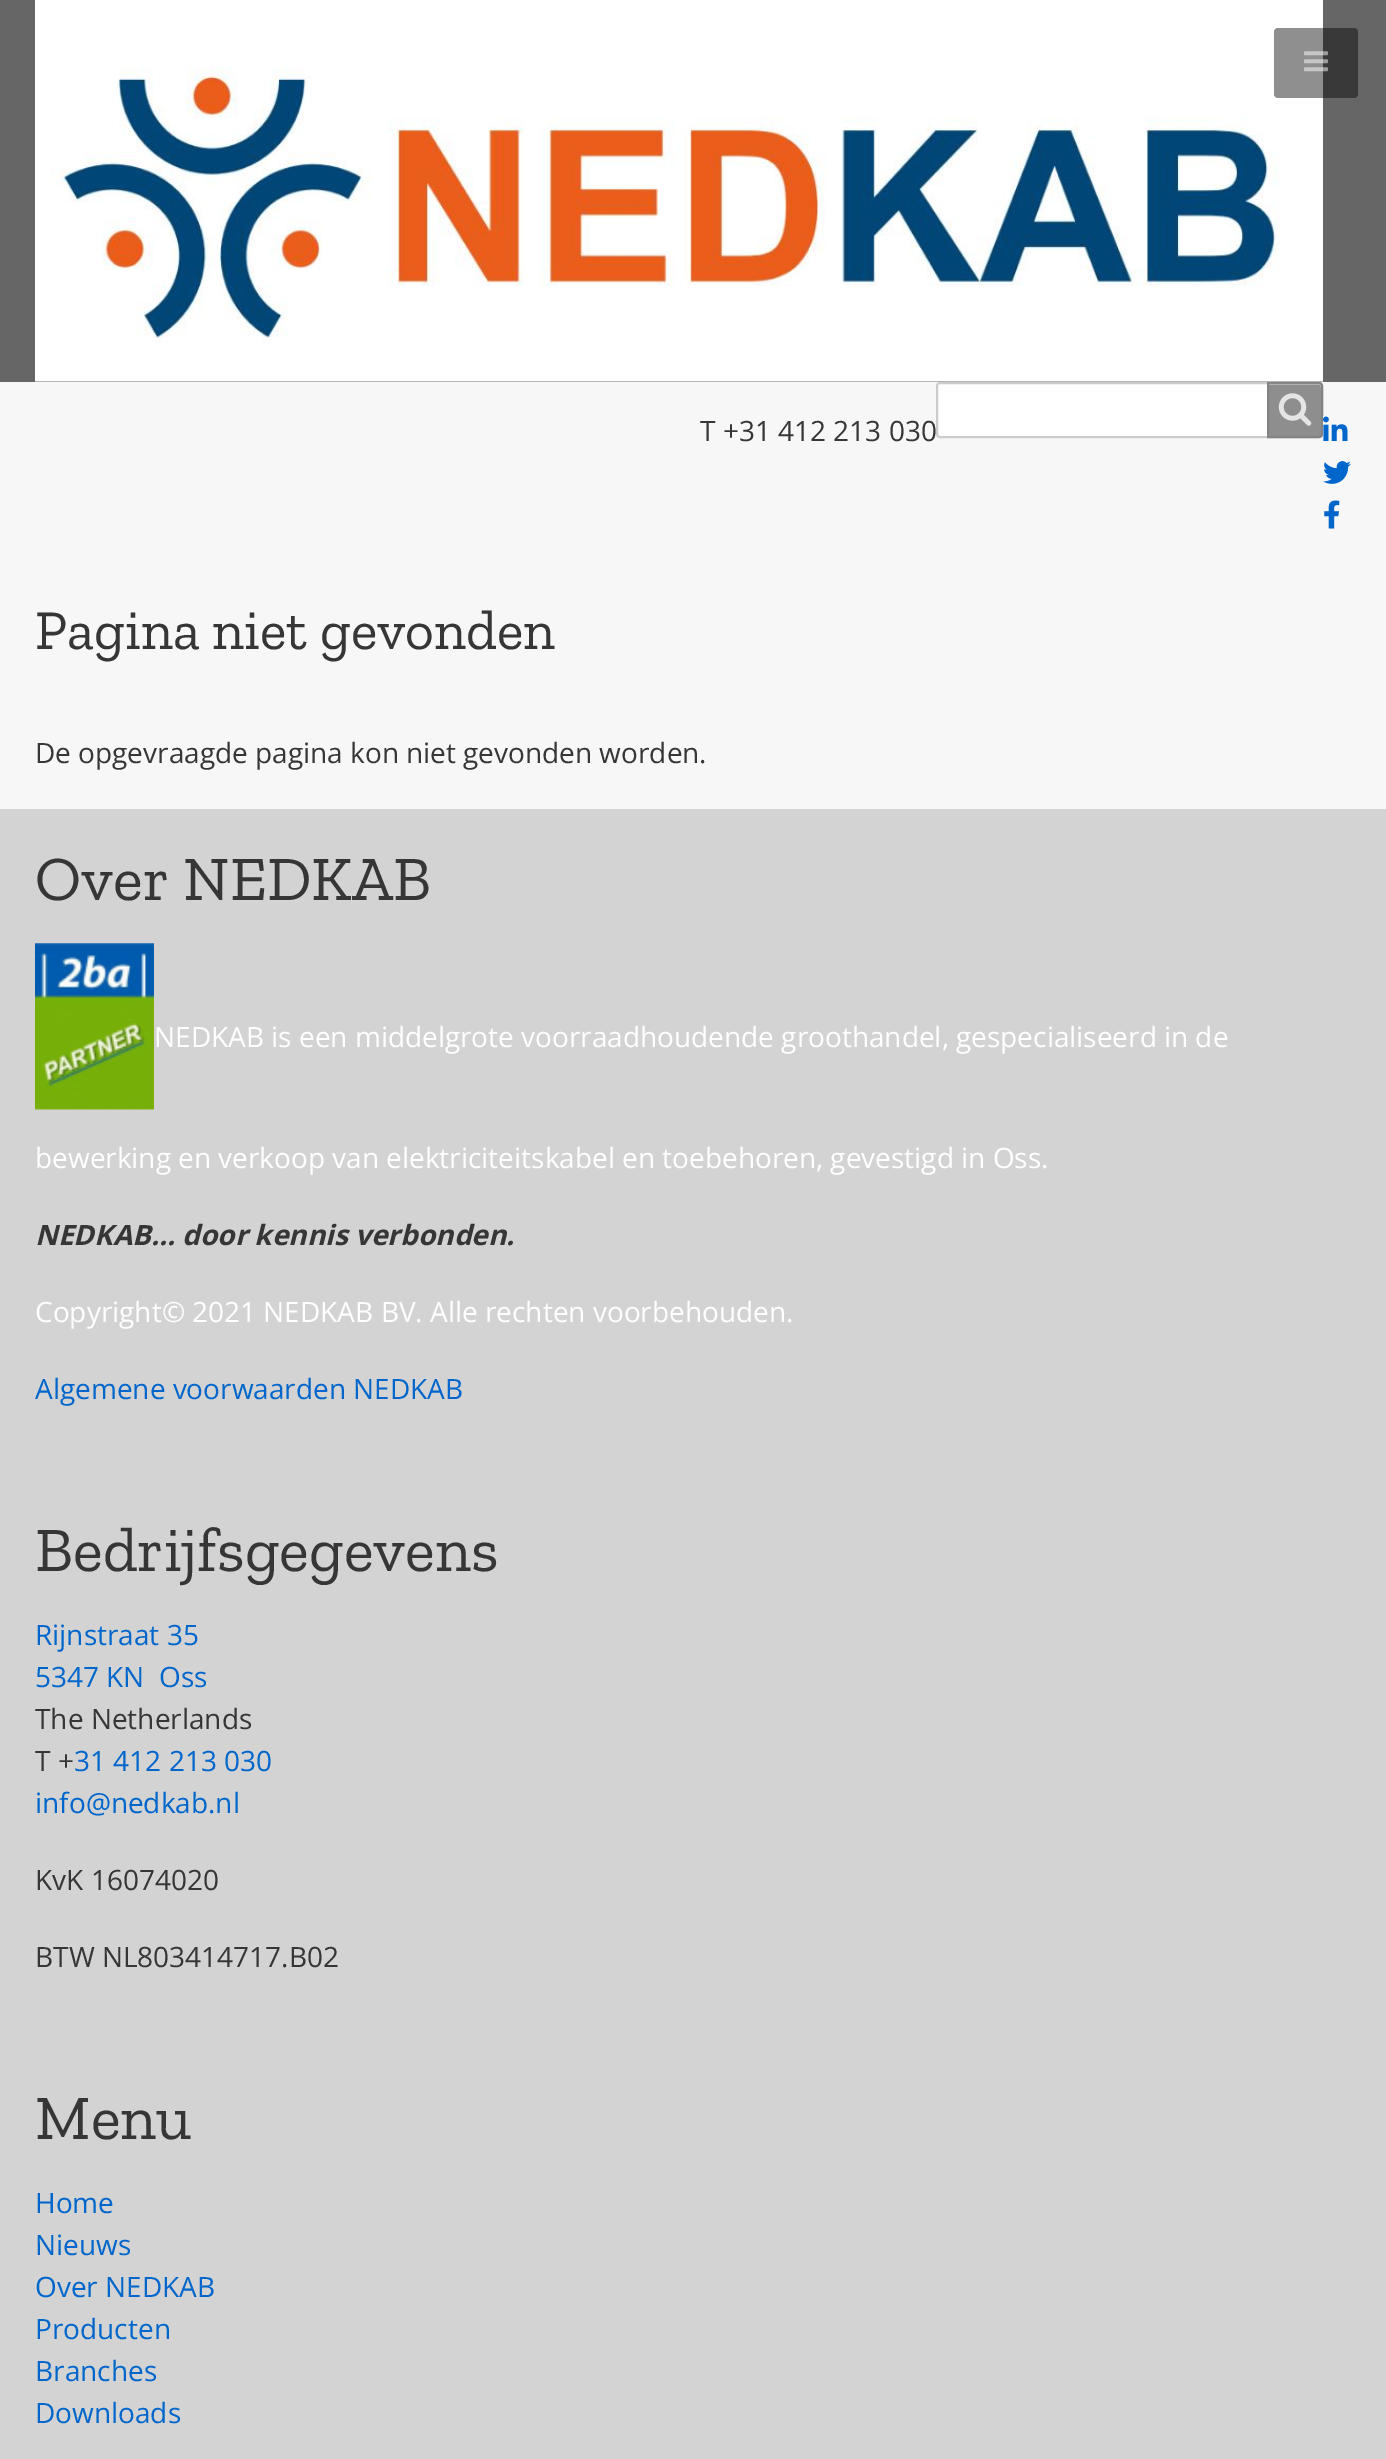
%!PS-Adobe-3.0
%%BoundingBox: 0 0 1386 2459
%%LanguageLevel: 3
%%Pages: 1
%%EndComments
%%BeginProlog
/m { moveto } bind def
/l { lineto } bind def
/c { curveto } bind def
/h { closepath } bind def
/f { fill } bind def
/S { stroke } bind def
/q { gsave } bind def
/Q { grestore } bind def
/w { setlinewidth } bind def
/fn { [ exch dup neg 0 0 3 -1 roll 0 0 ] selectfont } def
/tx { moveto show } def
/bx { rectfill } def
/al { dup .setfillconstantalpha .setstrokeconstantalpha } def
/rr { 5 dict begin { /r /h /w /y /x } { exch def } forall
  x r add y moveto x w add y 2 copy h add r arct x w add y h add x 1 index r arct
  x y h add x y r arct x y 2 copy exch w add exch r arct closepath end } def
/im { 5 dict begin { /h /w /y /x /name } { exch def } forall
  gsave x y translate w h scale
  w h 8 [w 0 0 h 0 0] name (r) file false 3 colorimage grestore end } def
%%EndProlog
%%BeginSetup
<< /PageSize [1386 2459] /PageUsesTransparency true >> setpagedevice
%%EndSetup
%%Page: 1 1
0 .pushpdf14devicefilter
0 2459 translate 1 -1 scale
4 setmiterlimit
0.969 setgray
0 0 1386 2459 bx
0.4 setgray
0 0 1386 382 bx
(image0.raw) 35 0 1288 382 im
0.44 al
0 setgray
1274 28 84 70 4 rr f
1 al
(image1.raw) 1304 51 24 21 im
1 setgray
937 383 385 54 3 rr q f Q
0.8 setgray
2 w
S
0.9 al
0.51 setgray
1267 382 m 1319 382 l 1321 382 1323 384 1323 386 c 1323 434 l 1323 436 1321 438 1319 438 c 1267 438 l h f
1 al
(image2.raw) 1278 393 34 33 im
0.45 al
1 setgray
1269 385 m 1320 385 l 1321 387 l 1321 385 l 1321 384 1320 383 1319 383 c 1269 383 l h f
0.9 al
0.51 setgray
1268 383 m 1319 383 l 1320.5 383 1322 384.5 1322 386 c 1322 434 l 1322 435.5 1320.5 437 1319 437 c 1268 437 l h S
/OpenSans-Regular 28 fn
1 al
0.212 setgray
(T +31 412 213 030) 700 441 tx
(image3.raw) 1323 416 25 25 im
(image4.raw) 1323 461 28 23 im
(image5.raw) 1324 500 16 29 im
/ZillaSlab-Regular 56 fn
(Pagina niet gevonden) 35 649 tx
/OpenSans-Regular 28 fn
(De opgevraagde pagina kon niet gevonden worden.) 35 763 tx
0.827 setgray
0 809 1386 1650 bx
/ZillaSlab-Regular 63 fn
0.212 setgray
(Over NEDKAB) 35 900 tx
(image6.raw) 35 943 119 167 im
/OpenSans-Regular 28 fn
1 setgray
(NEDKAB is een middelgrote voorraadhoudende groothandel, gespecialiseerd in de) 154 1047 tx
(bewerking en verkoop van elektriciteitskabel en toebehoren, gevestigd in Oss.) 35 1168 tx
/OpenSans-BoldItalic 28 fn
0.212 setgray
(NEDKAB... door kennis verbonden.) 35 1245 tx
/OpenSans-Regular 28 fn
1 setgray
(Copyright© 2021 NEDKAB BV. Alle rechten voorbehouden.) 35 1322 tx
0 0.4 0.8 setrgbcolor
(Algemene voorwaarden NEDKAB) 35 1399 tx
/ZillaSlab-Regular 63 fn
0.212 setgray
(Bedrijfsgegevens) 35 1571 tx
/OpenSans-Regular 28 fn
0 0.4 0.8 setrgbcolor
(Rijnstraat 35) 35 1645 tx
(5347 KN  Oss) 35 1687 tx
0.212 setgray
(The Netherlands) 35 1729 tx
(T +) 35 1771 tx
0 0.4 0.8 setrgbcolor
(31 412 213 030) 74 1771 tx
(info@nedkab.nl) 35 1813 tx
0.212 setgray
(KvK 16074020) 35 1890 tx
(BTW NL803414717.B02) 35 1967 tx
/ZillaSlab-Regular 63 fn
(Menu) 35 2139 tx
/OpenSans-Regular 28 fn
0 0.4 0.8 setrgbcolor
(Home) 35 2213 tx
(Nieuws) 35 2255 tx
(Over NEDKAB) 35 2297 tx
(Producten) 35 2339 tx
(Branches) 35 2381 tx
(Downloads) 35 2423 tx
.poppdf14devicefilter showpage
%%EOF
